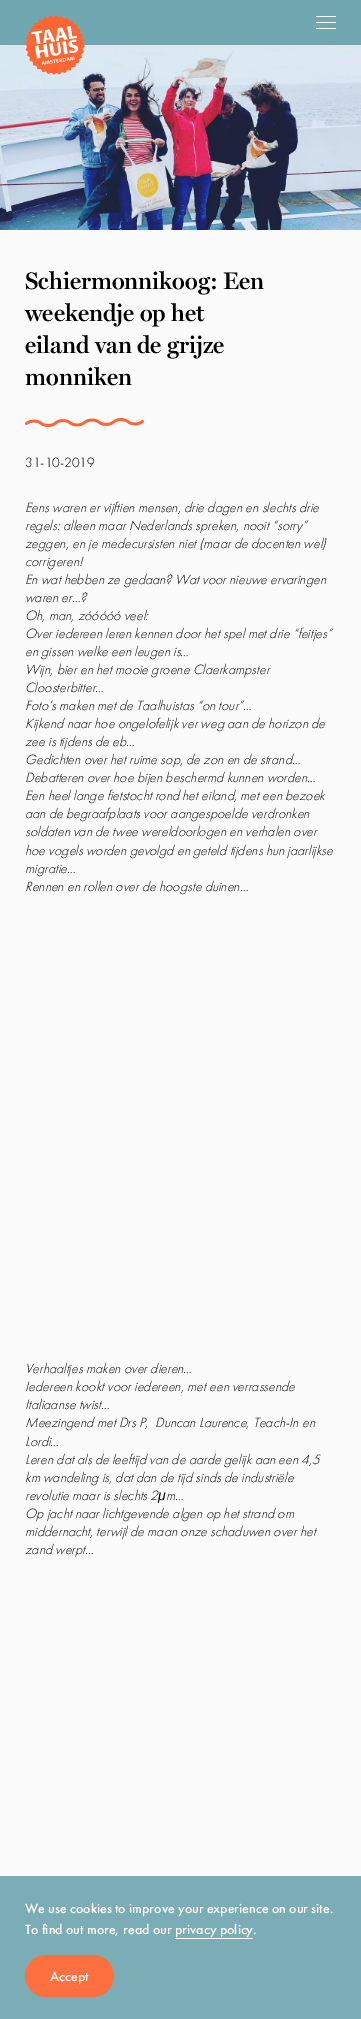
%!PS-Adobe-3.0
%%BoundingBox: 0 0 361 2019
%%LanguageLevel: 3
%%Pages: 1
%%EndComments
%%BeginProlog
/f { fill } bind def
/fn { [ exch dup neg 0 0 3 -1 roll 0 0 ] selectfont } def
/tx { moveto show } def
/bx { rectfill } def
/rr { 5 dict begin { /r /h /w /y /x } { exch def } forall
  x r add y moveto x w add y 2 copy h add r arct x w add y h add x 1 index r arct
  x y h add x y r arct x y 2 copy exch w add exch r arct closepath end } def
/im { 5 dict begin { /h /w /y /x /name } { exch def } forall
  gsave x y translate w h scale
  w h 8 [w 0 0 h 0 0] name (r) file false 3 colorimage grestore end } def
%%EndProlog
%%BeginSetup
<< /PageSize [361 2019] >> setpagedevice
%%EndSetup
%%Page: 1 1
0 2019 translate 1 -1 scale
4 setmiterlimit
0.984 setgray
0 0 361 2019 bx
0.443 0.655 0.694 setrgbcolor
0 0 361 45 bx
(image0.raw) 0 45 361 185 im
(image1.raw) 25 15 60 60 im
1 setgray
316 22 20 1 0.5 rr f
316 16 20 1 0.5 rr f
316 28 20 1 0.5 rr f
/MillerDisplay-SemiBold 24 fn
0 setgray
(Schiermonnikoog: Een) 25 289 tx
(weekendje op het) 25 321 tx
(eiland van de grijze) 25 353 tx
(monniken) 25 385 tx
(image2.raw) 25 418 119 9 im
/FuturaPT-Light 14 fn
(31-10-2019) 25 467 tx
/FuturaPT-LightItalic 14 fn
(Eens waren er vijftien mensen, drie dagen en slechts drie) 25 512 tx
(regels: alleen maar Nederlands spreken, nooit “sorry”) 25 530 tx
(zeggen, en je medecursisten niet \(maar de docenten wel\)) 25 548 tx
(corrigeren!) 25 566 tx
(En wat hebben ze gedaan? Wat voor nieuwe ervaringen) 25 584 tx
(waren er…?) 25 602 tx
(Oh, man, zóóóóó veel:) 25 620 tx
(Over iedereen leren kennen door het spel met drie “feitjes”) 25 638 tx
(en gissen welke een leugen is…) 25 656 tx
(Wijn, bier en het mooie groene Claerkampster) 25 674 tx
(Cloosterbitter…) 25 692 tx
(Foto’s maken met de Taalhuistas “on tour”…) 25 710 tx
(Kijkend naar hoe ongelofelijk ver weg aan de horizon de) 25 728 tx
(zee is tijdens de eb…) 25 746 tx
(Gedichten over het ruime sop, de zon en de strand…) 25 764 tx
(Debatteren over hoe bijen beschermd kunnen worden…) 25 782 tx
(Een heel lange fietstocht rond het eiland, met een bezoek) 25 800 tx
(aan de begraafplaats voor aangespoelde verdronken) 25 818 tx
(soldaten van de twee wereldoorlogen en verhalen over) 25 836 tx
(hoe vogels worden gevolgd en geteld tijdens hun jaarlijkse) 25 855 tx
(migratie…) 25 873 tx
(Rennen en rollen over de hoogste duinen…) 25 891 tx
(Verhaaltjes maken over dieren…) 25 1373 tx
(Iedereen kookt voor iedereen, met een verrassende) 25 1391 tx
(Italiaanse twist…) 25 1409 tx
(Meezingend met Drs P,  Duncan Laurence, Teach-In en) 25 1427 tx
(Lordi…) 25 1446 tx
(Leren dat als de leeftijd van de aarde gelijk aan een 4,5) 25 1464 tx
(km wandeling is, dat dan de tijd sinds de industriële) 25 1482 tx
(revolutie maar is slechts 2) 25 1500 tx
/LiberationSans-Italic 14 fn
(μ) 158 1500 tx
/FuturaPT-LightItalic 14 fn
(m…) 166 1500 tx
(Op jacht naar lichtgevende algen op het strand om) 25 1518 tx
(middernacht, terwijl de maan onze schaduwen over het) 25 1536 tx
(zand werpt…) 25 1554 tx
0.482 0.678 0.714 setrgbcolor
0 1876 361 143 bx
/FuturaPT-Medium 14 fn
1 setgray
(We use cookies to improve your experience on our site.) 25 1913 tx
(To find out more, read our privacy policy.) 25 1934 tx
175 1938 78 1 bx
1 0.439 0.255 setrgbcolor
25 1955 89 42 21 rr f
1 setgray
(Accept) 50 1981 tx
showpage
%%EOF
